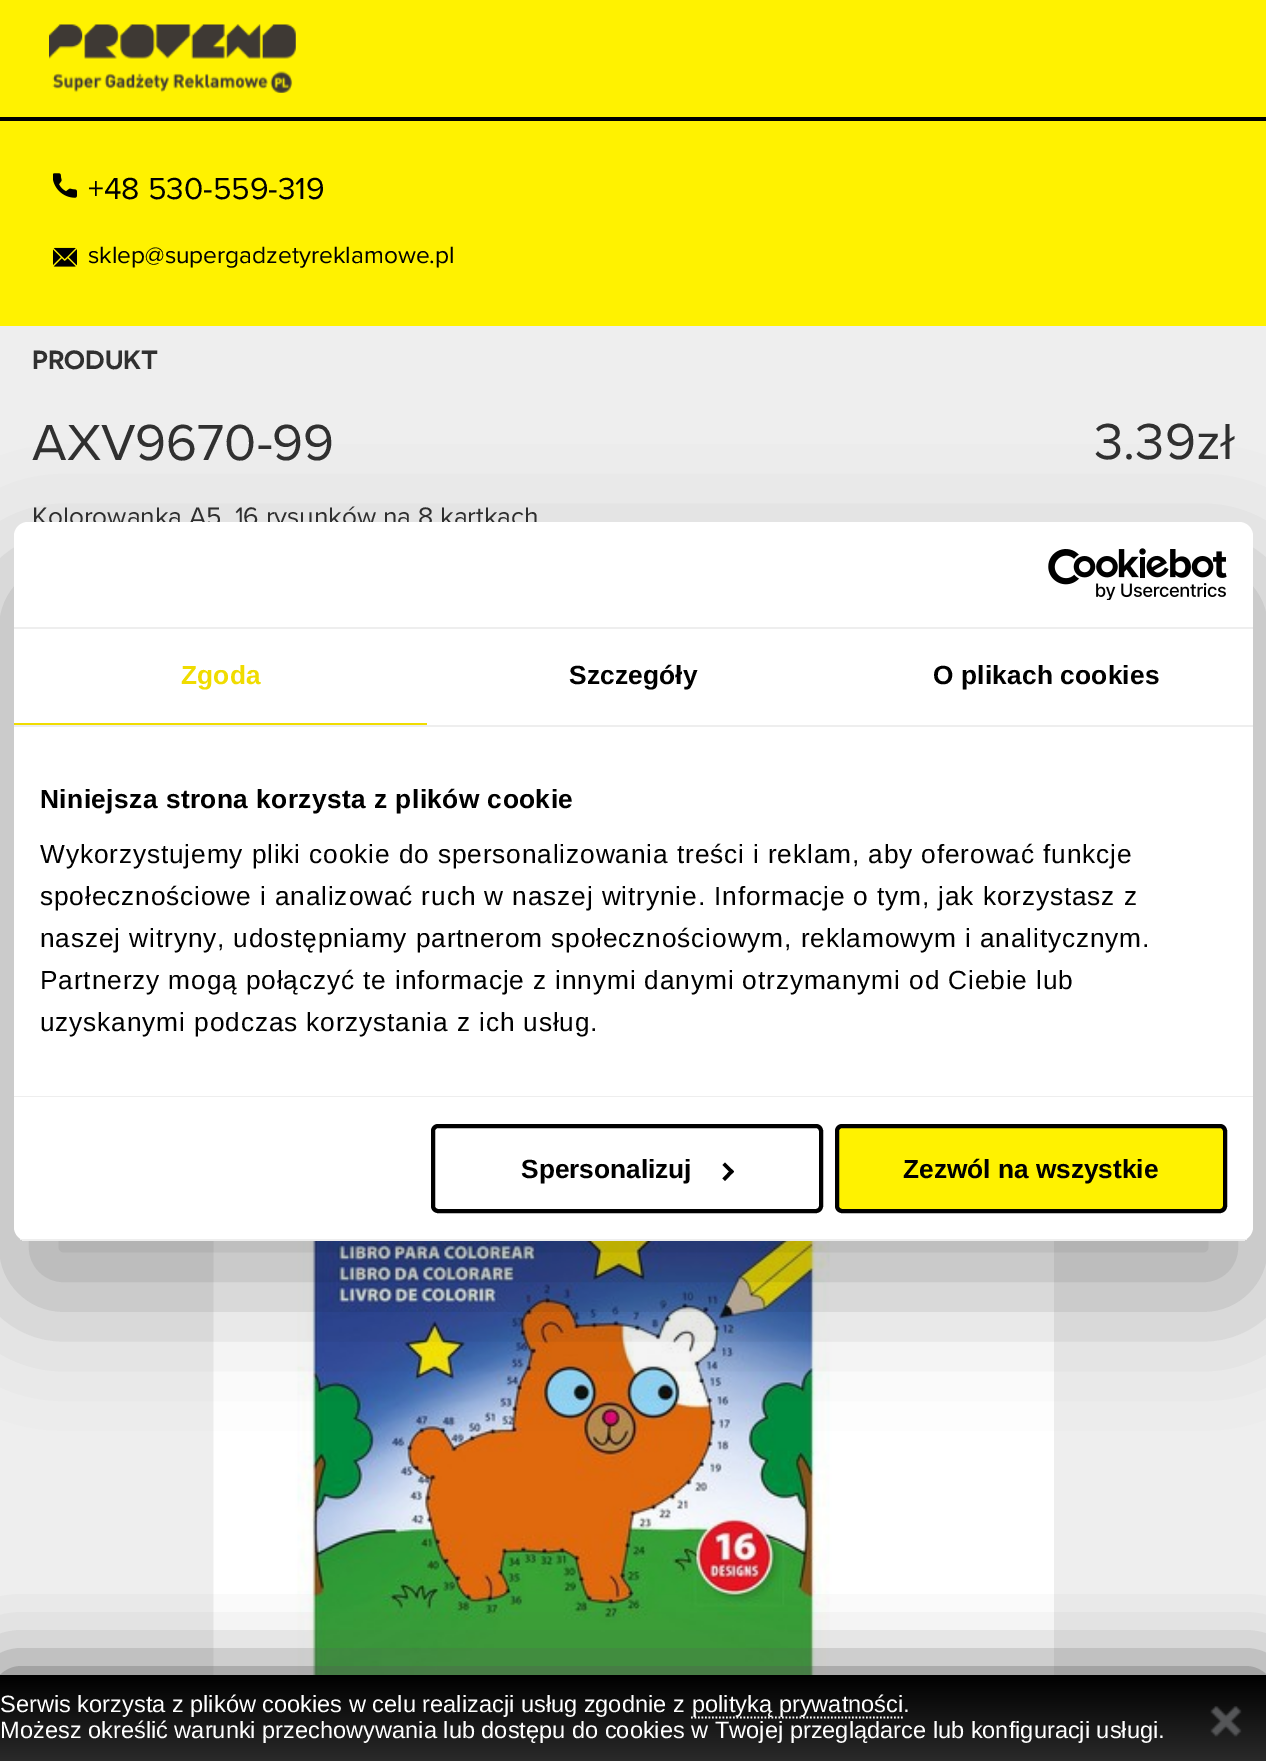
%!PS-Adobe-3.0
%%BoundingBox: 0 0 1266 1761
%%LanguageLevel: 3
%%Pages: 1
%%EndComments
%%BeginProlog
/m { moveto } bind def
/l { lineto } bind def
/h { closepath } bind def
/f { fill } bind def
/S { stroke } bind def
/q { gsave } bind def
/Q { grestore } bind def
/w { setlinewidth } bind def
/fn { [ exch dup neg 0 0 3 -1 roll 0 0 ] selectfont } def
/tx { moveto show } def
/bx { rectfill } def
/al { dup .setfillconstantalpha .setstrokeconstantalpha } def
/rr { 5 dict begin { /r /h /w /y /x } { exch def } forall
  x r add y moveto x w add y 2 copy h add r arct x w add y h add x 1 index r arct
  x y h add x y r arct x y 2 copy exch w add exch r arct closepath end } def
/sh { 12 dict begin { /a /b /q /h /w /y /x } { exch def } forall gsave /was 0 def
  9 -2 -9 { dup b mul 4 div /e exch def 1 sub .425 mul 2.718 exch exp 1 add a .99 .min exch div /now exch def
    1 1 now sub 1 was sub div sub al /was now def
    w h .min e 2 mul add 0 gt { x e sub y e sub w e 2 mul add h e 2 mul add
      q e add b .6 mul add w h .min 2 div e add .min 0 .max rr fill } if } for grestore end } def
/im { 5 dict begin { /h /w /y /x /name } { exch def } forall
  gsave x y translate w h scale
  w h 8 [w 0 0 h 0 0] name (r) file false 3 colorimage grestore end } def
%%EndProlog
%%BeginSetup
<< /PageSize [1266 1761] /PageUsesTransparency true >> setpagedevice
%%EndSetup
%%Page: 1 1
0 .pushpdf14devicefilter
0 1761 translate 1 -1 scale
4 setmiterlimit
0.933 setgray
0 0 1266 1761 bx
1 0.949 0 setrgbcolor
0 0 1266 326 bx
(image0.raw) 49 24 247 69 im
0 setgray
0 117 1266 4 bx
(image1.raw) 53 173 24 25 im
/ProximaNova-Regular 31.5 fn
(+48 530-559-319) 88 199 tx
(image2.raw) 53 247 24 20 im
/ProximaNova-Regular 24.5 fn
(sklep@supergadzetyreklamowe.pl) 88 263 tx
/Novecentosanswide-SemiBold 26.25 fn
0.188 setgray
(PRODUKT) 32 369 tx
/ProximaNova-Regular 52.5 fn
(AXV9670-99) 32 460 tx
(3.39zł) 1094 459 tx
/ProximaNova-Regular 26.25 fn
(Kolorowanka A5, 16 rysunków na 8 kartkach) 32 525 tx
1 setgray
913 1241 141 434 bx
(image3.raw) 213 1241 700 434 im
0 setgray
14 578 1239 719 14 59.5 0.3 sh
1 setgray
14 522 1239 719 14 rr f
0.933 setgray
14 627 1239 2 bx
(image4.raw) 1048 548 179 52 im
14 725 1239 2 bx
0.941 0.863 0 setrgbcolor
14 723 413 2 bx
/LiberationSans-Bold 26.25 fn
181 684 m 0.2 0 (Zgoda) ashow
0 setgray
569 684 m 0.2 0 (Szczegóły) ashow
933 684 m 0.2 0 (O plikach cookies) ashow
0.933 setgray
14 1096 1239 1 bx
0 setgray
40 808 m 0.45 0 (Niniejsza strona korzysta z plików cookie) ashow
/LiberationSans-Regular 26.25 fn
40 863 m 0.88 0 (Wykorzystujemy pliki cookie do spersonalizowania treści i reklam, aby oferować funkcje) ashow
40 905 m 0.88 0 (społecznościowe i analizować ruch w naszej witrynie. Informacje o tym, jak korzystasz z) ashow
40 947 m 0.88 0 (naszej witryny, udostępniamy partnerom społecznościowym, reklamowym i analitycznym.) ashow
40 989 m 0.88 0 (Partnerzy mogą połączyć te informacje z innymi danymi otrzymanymi od Ciebie lub) ashow
40 1031 m 0.88 0 (uzyskanymi podczas korzystania z ich usług.) ashow
q
14 522 1239 719 14 rr clip newpath
0.933 setgray
14 1239 1239 2 bx
Q
4 w
433 1126 388 85 5 rr S
/LiberationSans-Bold 26.25 fn
(Spersonalizuj) 521 1178 tx
725 1162.5 m 734 1171.5 l 731.5 1174 l 722.5 1165 l h f
731.5 1169 m 734 1171.5 l 725 1181 l 722.5 1178.5 l h f
1 0.949 0 setrgbcolor
837 1126 388 85 5 rr q f Q
0 setgray
S
(Zezwól na wszystkie) 903 1178 tx
0.337 setgray
0 1675 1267 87 0 36 1 sh
q 0 1675 m 1266 1675 l 1266 1761 l 0 1761 l h clip newpath
<< /ShadingType 2 /ColorSpace /DeviceRGB /Coords [634 1675 634 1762] /Extend [true true] /Function << /FunctionType 2 /Domain [0 1] /C0 [0 0 0] /C1 [0.165 0.165 0.165] /N 1 >> >> shfill Q
/LiberationSans-Regular 23.6 fn
1 setgray
(Serwis korzysta z plików cookies w celu realizacji usług zgodnie z) 0 1712 tx
1.8 w
[1.75 1.75] 0 setdash
691 1717.5 m 903 1717.5 l S
(polityką prywatności.) 692 1712 tx
(Możesz określić warunki przechowywania lub dostępu do cookies w Twojej przeglądarce lub konfiguracji usługi.) 0 1738 tx
(image5.raw) 1210 1706 32 31 im
.poppdf14devicefilter showpage
%%EOF
